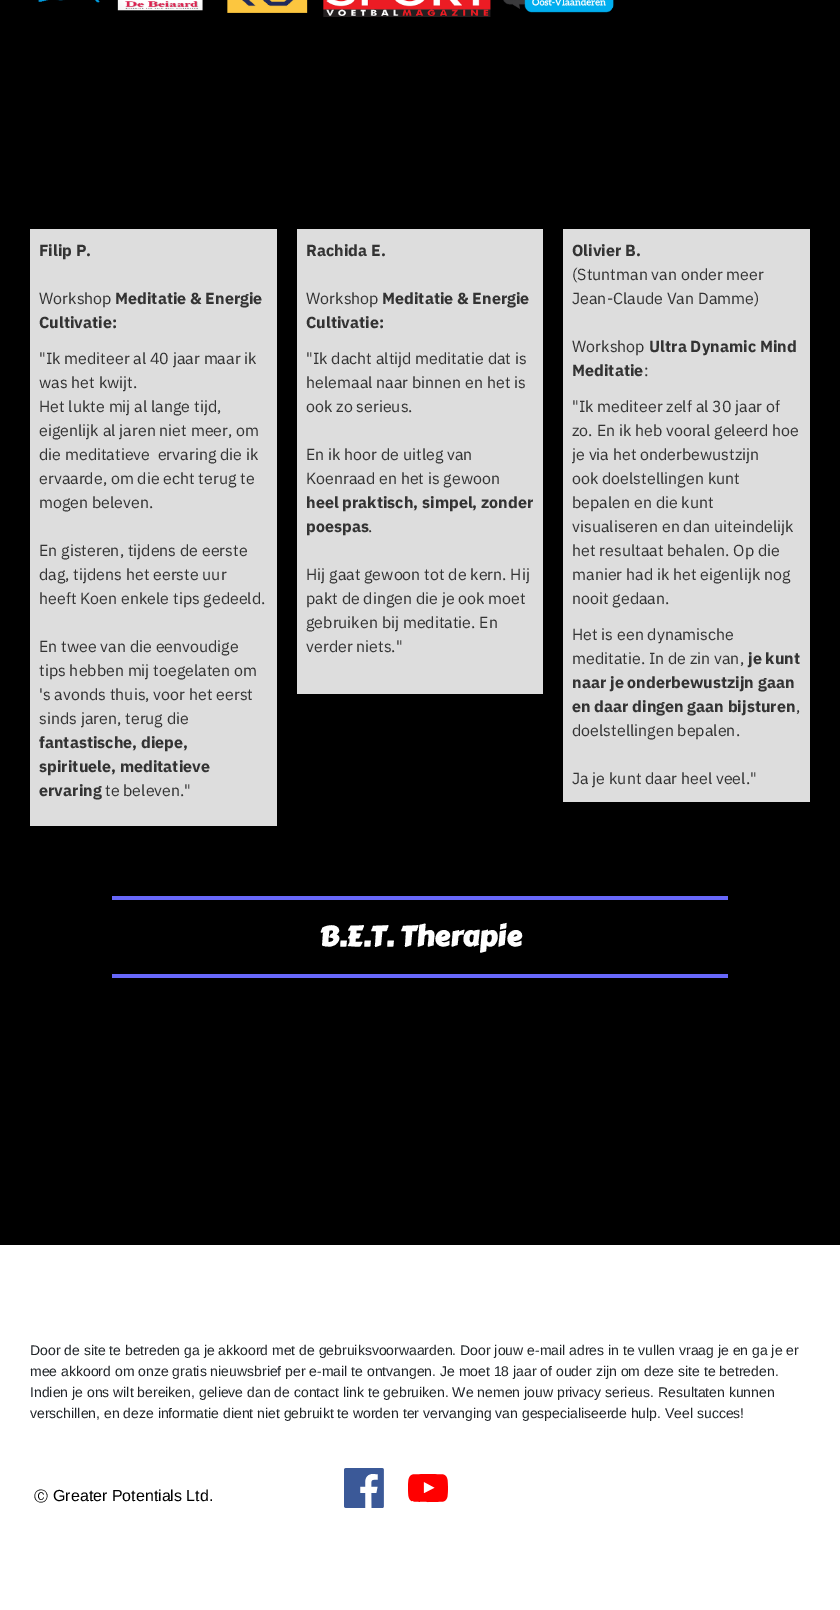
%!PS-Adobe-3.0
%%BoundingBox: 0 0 840 1610
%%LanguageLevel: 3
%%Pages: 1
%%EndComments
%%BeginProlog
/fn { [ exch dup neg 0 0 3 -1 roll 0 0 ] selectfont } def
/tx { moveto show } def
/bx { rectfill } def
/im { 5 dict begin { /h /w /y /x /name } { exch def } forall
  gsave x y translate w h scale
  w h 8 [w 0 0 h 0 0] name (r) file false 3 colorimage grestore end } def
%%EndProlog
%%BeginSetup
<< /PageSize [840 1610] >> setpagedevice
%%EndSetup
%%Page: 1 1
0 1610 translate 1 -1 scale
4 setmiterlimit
1 setgray
0 0 840 1610 bx
0 setgray
0 0 840 1245 bx
(image0.raw) 38 0 576 17 im
0.867 setgray
30 229 247 597 bx
/IBMPlexSans-Bold 16 fn
0.2 setgray
(Filip P.) 39 256 tx
/IBMPlexSans-Regular 16 fn
(Workshop) 39 304 tx
/IBMPlexSans-Bold 16 fn
(Meditatie & Energie) 115 304 tx
(Cultivatie:) 39 328 tx
/IBMPlexSans-Regular 16 fn
("Ik mediteer al 40 jaar maar ik) 39 364 tx
(was het kwijt.) 39 388 tx
(Het lukte mij al lange tijd,) 39 412 tx
(eigenlijk al jaren niet meer, om) 39 436 tx
(die meditatieve  ervaring die ik) 39 460 tx
(ervaarde, om die echt terug te) 39 484 tx
(mogen beleven.) 39 508 tx
(En gisteren, tijdens de eerste) 39 556 tx
(dag, tijdens het eerste uur) 39 580 tx
(heeft Koen enkele tips gedeeld.) 39 604 tx
(En twee van die eenvoudige) 39 652 tx
(tips hebben mij toegelaten om) 39 676 tx
('s avonds thuis, voor het eerst) 39 700 tx
(sinds jaren, terug die) 39 724 tx
/IBMPlexSans-Bold 16 fn
(fantastische, diepe,) 39 748 tx
(spirituele, meditatieve) 39 772 tx
(ervaring) 39 796 tx
/IBMPlexSans-Regular 16 fn
(te beleven.") 105 796 tx
0.867 setgray
297 229 246 465 bx
/IBMPlexSans-Bold 16 fn
0.2 setgray
(Rachida E.) 306 256 tx
/IBMPlexSans-Regular 16 fn
(Workshop) 306 304 tx
/IBMPlexSans-Bold 16 fn
(Meditatie & Energie) 382 304 tx
(Cultivatie:) 306 328 tx
/IBMPlexSans-Regular 16 fn
("Ik dacht altijd meditatie dat is) 306 364 tx
(helemaal naar binnen en het is) 306 388 tx
(ook zo serieus.) 306 412 tx
(En ik hoor de uitleg van) 306 460 tx
(Koenraad en het is gewoon) 306 484 tx
/IBMPlexSans-Bold 16 fn
(heel praktisch, simpel, zonder) 306 508 tx
(poespas) 306 532 tx
/IBMPlexSans-Regular 16 fn
(.) 368 532 tx
(Hij gaat gewoon tot de kern. Hij) 306 580 tx
(pakt de dingen die je ook moet) 306 604 tx
(gebruiken bij meditatie. En) 306 628 tx
(verder niets.") 306 652 tx
0.867 setgray
563 229 247 573 bx
/IBMPlexSans-Bold 16 fn
0.2 setgray
(Olivier B.) 572 256 tx
/IBMPlexSans-Regular 16 fn
(\(Stuntman van onder meer) 572 280 tx
(Jean-Claude Van Damme\)) 572 304 tx
(Workshop) 572 352 tx
/IBMPlexSans-Bold 16 fn
(Ultra Dynamic Mind) 649 352 tx
(Meditatie) 572 376 tx
/IBMPlexSans-Regular 16 fn
(:) 644 376 tx
("Ik mediteer zelf al 30 jaar of) 572 412 tx
(zo. En ik heb vooral geleerd hoe) 572 436 tx
(je via het onderbewustzijn) 572 460 tx
(ook doelstellingen kunt) 572 484 tx
(bepalen en die kunt) 572 508 tx
(visualiseren en dan uiteindelijk) 572 532 tx
(het resultaat behalen. Op die) 572 556 tx
(manier had ik het eigenlijk nog) 572 580 tx
(nooit gedaan.) 572 604 tx
(Het is een dynamische) 572 640 tx
(meditatie. In de zin van,) 572 664 tx
/IBMPlexSans-Bold 16 fn
(je kunt) 748 664 tx
(naar je onderbewustzijn gaan) 572 688 tx
(en daar dingen gaan bijsturen) 572 712 tx
/IBMPlexSans-Regular 16 fn
(,) 796 712 tx
(doelstellingen bepalen.) 572 736 tx
(Ja je kunt daar heel veel.") 572 784 tx
0.408 0.408 0.98 setrgbcolor
112 896 616 4 bx
/CarterOne-Bold 28 fn
0.996 setgray
(B.E.T. Therapie) 319 946 tx
0.408 0.408 0.98 setrgbcolor
112 974 616 4 bx
/LiberationSans-Regular 14 fn
0.129 0.145 0.161 setrgbcolor
(Door de site te betreden ga je akkoord met de gebruiksvoorwaarden. Door jouw e-mail adres in te vullen vraag je en ga je er) 30 1355 tx
(mee akkoord om onze gratis nieuwsbrief per e-mail te ontvangen. Je moet 18 jaar of ouder zijn om deze site te betreden.) 30 1376 tx
(Indien je ons wilt bereiken, gelieve dan de contact link te gebruiken. We nemen jouw privacy serieus. Resultaten kunnen) 30 1397 tx
(verschillen, en deze informatie dient niet gebruikt te worden ter vervanging van gespecialiseerde hulp. Veel succes!) 30 1418 tx
/WenQuanYiZenHei-Medium 14 fn
0 setgray
(Ⓒ) 34 1501 tx
/LiberationSans-Regular 16 fn
(Greater Potentials Ltd.) 53 1501 tx
(image1.raw) 344 1468 40 40 im
(image2.raw) 408 1474 40 29 im
showpage
%%EOF
